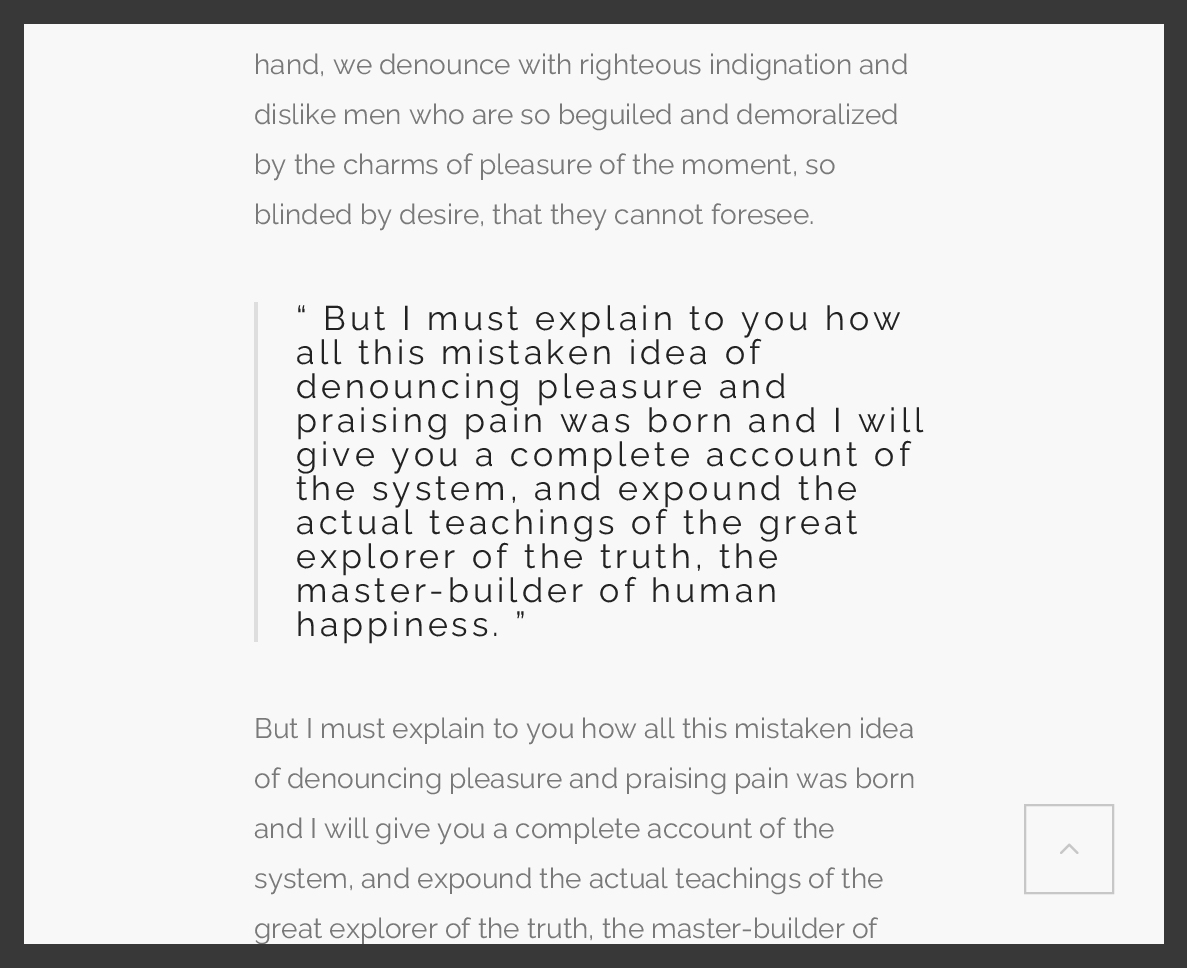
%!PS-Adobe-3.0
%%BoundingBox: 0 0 1187 968
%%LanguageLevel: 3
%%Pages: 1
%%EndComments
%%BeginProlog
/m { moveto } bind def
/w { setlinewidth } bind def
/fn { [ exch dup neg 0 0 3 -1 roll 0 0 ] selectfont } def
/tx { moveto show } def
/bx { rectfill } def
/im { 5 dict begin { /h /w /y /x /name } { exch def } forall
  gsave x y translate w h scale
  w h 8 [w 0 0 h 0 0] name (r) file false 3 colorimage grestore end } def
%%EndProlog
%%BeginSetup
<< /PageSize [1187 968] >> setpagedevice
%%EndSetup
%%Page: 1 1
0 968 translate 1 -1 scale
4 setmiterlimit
0.22 setgray
0 0 1187 968 bx
0.973 setgray
24 24 1140 920 bx
/Raleway-Regular 28 fn
0.475 setgray
(hand, we denounce with righteous indignation and) 254 74 tx
(dislike men who are so beguiled and demoralized) 254 124 tx
(by the charms of pleasure of the moment, so) 254 174 tx
(blinded by desire, that they cannot foresee.) 254 224 tx
0.871 setgray
254 302 4 340 bx
/Raleway-Regular 34 fn
0.133 setgray
296 330 m 4 0 (“ But I must explain to you how) ashow
296 364 m 4 0 (all this mistaken idea of) ashow
296 398 m 4 0 (denouncing pleasure and) ashow
296 432 m 4 0 (praising pain was born and I will) ashow
296 466 m 4 0 (give you a complete account of) ashow
296 500 m 4 0 (the system, and expound the) ashow
296 534 m 4 0 (actual teachings of the great) ashow
296 568 m 4 0 (explorer of the truth, the) ashow
296 602 m 4 0 (master-builder of human) ashow
296 636 m 4 0 (happiness. ”) ashow
/Raleway-Regular 28 fn
0.475 setgray
(But I must explain to you how all this mistaken idea) 254 738 tx
(of denouncing pleasure and praising pain was born) 254 788 tx
(and I will give you a complete account of the) 254 838 tx
(system, and expound the actual teachings of the) 254 888 tx
(great explorer of the truth, the master-builder of) 254 938 tx
0.22 setgray
260 944 4 1 bx
0.78 setgray
2 w
1025 805 88 88 rectstroke
(image0.raw) 1060 843 19 11 im
showpage
%%EOF
